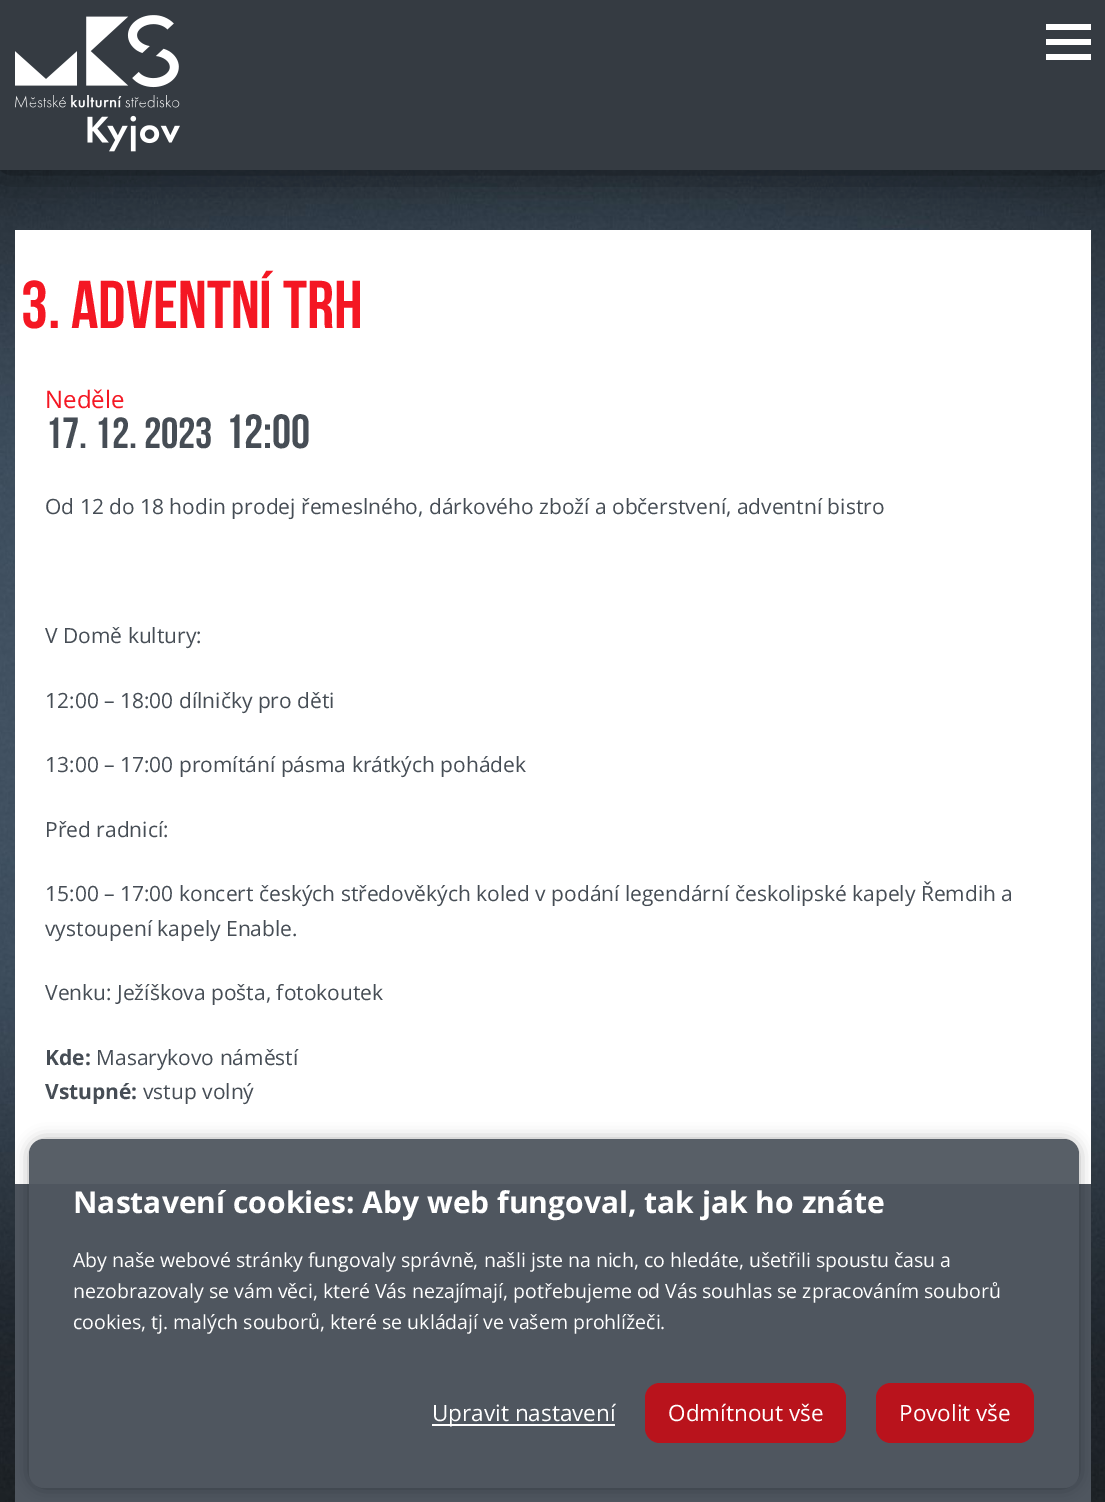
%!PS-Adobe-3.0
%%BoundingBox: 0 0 1105 1502
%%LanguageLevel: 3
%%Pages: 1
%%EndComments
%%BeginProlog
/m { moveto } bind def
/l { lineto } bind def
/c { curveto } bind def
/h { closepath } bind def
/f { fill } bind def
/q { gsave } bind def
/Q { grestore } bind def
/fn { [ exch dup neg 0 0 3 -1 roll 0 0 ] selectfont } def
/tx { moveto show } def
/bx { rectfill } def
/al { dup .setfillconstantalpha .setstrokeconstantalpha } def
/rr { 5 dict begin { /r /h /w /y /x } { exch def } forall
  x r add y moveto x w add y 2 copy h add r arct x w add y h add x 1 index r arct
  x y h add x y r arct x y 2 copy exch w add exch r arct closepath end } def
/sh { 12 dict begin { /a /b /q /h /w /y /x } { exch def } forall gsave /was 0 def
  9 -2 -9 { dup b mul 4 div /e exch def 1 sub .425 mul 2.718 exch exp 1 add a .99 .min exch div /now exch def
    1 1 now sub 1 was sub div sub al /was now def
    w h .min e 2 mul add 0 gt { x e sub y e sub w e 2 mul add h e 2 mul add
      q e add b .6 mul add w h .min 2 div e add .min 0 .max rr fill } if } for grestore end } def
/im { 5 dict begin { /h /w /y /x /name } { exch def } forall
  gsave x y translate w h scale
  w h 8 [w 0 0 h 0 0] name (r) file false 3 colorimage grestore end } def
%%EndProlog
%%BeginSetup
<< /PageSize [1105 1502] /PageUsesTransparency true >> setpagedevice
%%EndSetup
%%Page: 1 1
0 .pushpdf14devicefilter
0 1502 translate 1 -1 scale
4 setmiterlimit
1 setgray
0 0 1105 1502 bx
(image0.raw) 0 170 1105 1332 im
0 setgray
0 0 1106 170 0 22.5 0.6 sh
0.208 0.231 0.259 setrgbcolor
0 0 1105 170 bx
(image1.raw) 15 15 165 137 im
1 setgray
1046 24 45 6 bx
1046 54 45 6 bx
1046 39 45 6 bx
15 230 1076 954 bx
/BebasNeue-Regular 67.5 fn
0.957 0.09 0.137 setrgbcolor
(3. ADVENTNÍ TRH) 21 328 tx
/OpenSans-Regular 24 fn
(Neděle) 45 408 tx
/BebasNeue-Regular 43.5 fn
0.275 0.302 0.333 setrgbcolor
(17. 12. 2023) 45 448 tx
/BebasNeue-Regular 48 fn
(12:00) 225 448 tx
/OpenSans-Regular 21 fn
(Od 12 do 18 hodin prodej řemeslného, dárkového zboží a občerstvení, adventní bistro) 45 514 tx
(V Domě kultury:) 45 643 tx
(12:00 – 18:00 dílničky pro děti) 45 708 tx
(13:00 – 17:00 promítání pásma krátkých pohádek) 45 772 tx
(Před radnicí:) 45 837 tx
(15:00 – 17:00 koncert českých středověkých koled v podání legendární českolipské kapely Řemdih a) 45 901 tx
(vystoupení kapely Enable.) 45 936 tx
(Venku: Ježíškova pošta, fotokoutek) 45 1000 tx
/OpenSans-Bold 21 fn
(Kde:) 45 1065 tx
/OpenSans-Regular 21 fn
(Masarykovo náměstí) 96 1065 tx
/OpenSans-Bold 21 fn
(Vstupné:) 45 1099 tx
/OpenSans-Regular 21 fn
(vstup volný) 143 1099 tx
0.31 0.337 0.373 setrgbcolor
15 1184 1076 318 bx
q
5 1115 m 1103 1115 l 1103 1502 l 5 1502 l h 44 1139 m 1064 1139 l 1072.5 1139 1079 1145.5 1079 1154 c 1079 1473 l 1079 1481.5 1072.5 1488 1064 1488 c 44 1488 l 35.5 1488 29 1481.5 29 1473 c 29 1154 l 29 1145.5 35.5 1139 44 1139 c h eoclip newpath
0 setgray
29 1139 1050 349 15 7.5 0.3 sh
Q
0.95 al
29 1139 1050 349 15 rr f
/OpenSans-Bold 30 fn
1 al
1 setgray
(Nastavení cookies: Aby web fungoval, tak jak ho znáte) 73 1213 tx
/OpenSans-Regular 19.5 fn
(Aby naše webové stránky fungovaly správně, našli jste na nich, co hledáte, ušetřili spoustu času a) 73 1267 tx
(nezobrazovaly se vám věci, které Vás nezajímají, potřebujeme od Vás souhlas se zpracováním souborů) 73 1298 tx
(cookies, tj. malých souborů, které se ukládají ve vašem prohlížeči.) 73 1329 tx
432 1424 183 2 bx
/OpenSans-Regular 22.5 fn
(Upravit nastavení) 432 1421 tx
0.725 0.075 0.11 setrgbcolor
645 1383 201 60 15 rr f
1 setgray
(Odmítnout vše) 668 1421 tx
0.725 0.075 0.11 setrgbcolor
876 1383 158 60 15 rr f
1 setgray
(Povolit vše) 899 1421 tx
.poppdf14devicefilter showpage
%%EOF
